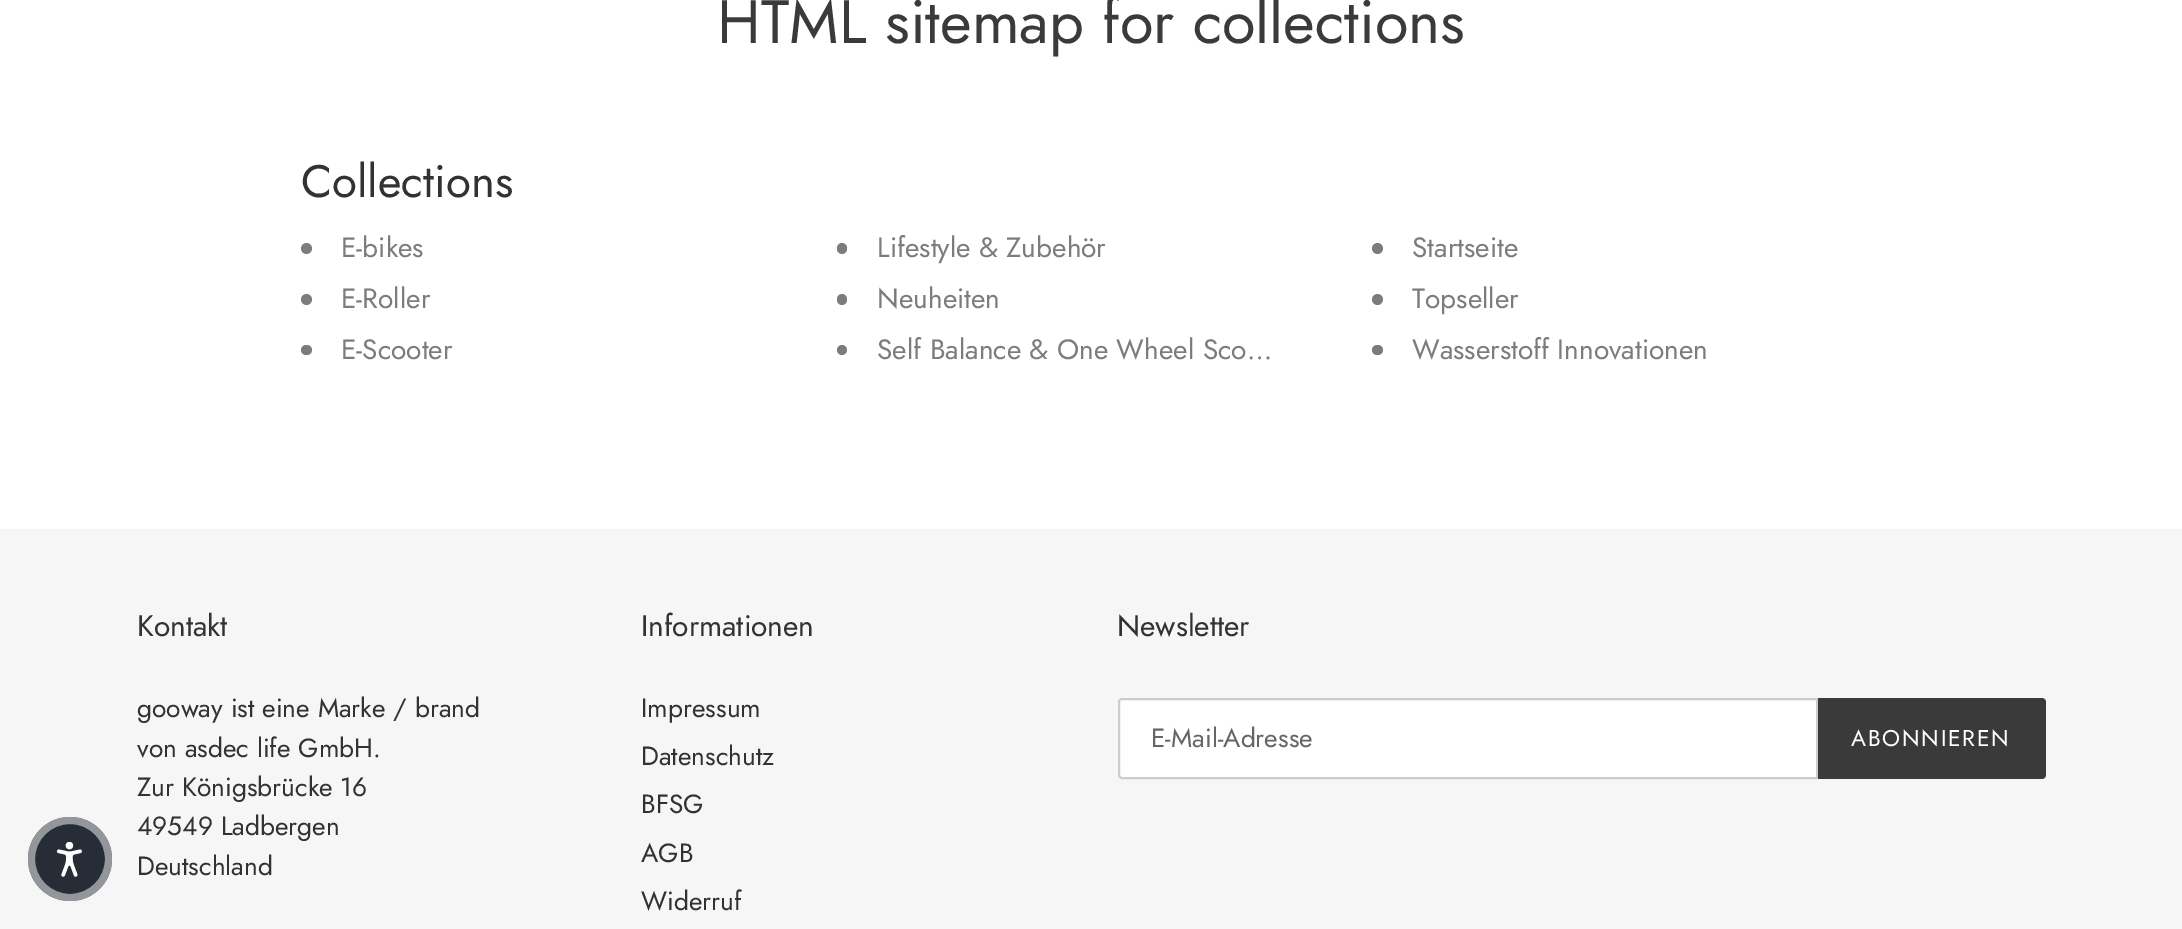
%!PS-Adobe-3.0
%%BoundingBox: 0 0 2182 929
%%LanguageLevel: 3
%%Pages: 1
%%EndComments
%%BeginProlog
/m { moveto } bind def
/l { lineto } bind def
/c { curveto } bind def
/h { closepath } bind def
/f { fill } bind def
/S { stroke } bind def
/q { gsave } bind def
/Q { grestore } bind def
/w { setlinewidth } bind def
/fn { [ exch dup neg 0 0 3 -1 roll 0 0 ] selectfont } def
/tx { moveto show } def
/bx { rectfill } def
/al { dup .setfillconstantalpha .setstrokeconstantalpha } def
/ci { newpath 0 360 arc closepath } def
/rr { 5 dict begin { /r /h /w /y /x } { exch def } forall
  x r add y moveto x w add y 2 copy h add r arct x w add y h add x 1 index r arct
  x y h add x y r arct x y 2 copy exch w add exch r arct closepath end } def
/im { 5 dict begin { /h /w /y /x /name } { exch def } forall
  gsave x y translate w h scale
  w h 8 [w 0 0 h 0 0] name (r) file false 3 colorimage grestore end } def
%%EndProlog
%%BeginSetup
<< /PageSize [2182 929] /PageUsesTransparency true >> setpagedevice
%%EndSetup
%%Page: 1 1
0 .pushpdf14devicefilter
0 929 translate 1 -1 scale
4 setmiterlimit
1 setgray
0 0 2182 929 bx
0.965 setgray
0 529 2182 400 bx
0.153 0.176 0.212 setrgbcolor
70 859 42 ci f
0.5 al
1 setgray
7 w
70 859 38.5 ci S
1 al
(image0.raw) 56 842 26 35 im
/Jost-Regular 61.25 fn
0.227 setgray
(HTML sitemap for collections) 717 43 tx
/Jost-Regular 45.5 fn
0.2 0.196 0.196 setrgbcolor
(Collections) 301 197 tx
0.486 setgray
306.5 248.5 5.5 ci f
/Jost-Regular 28 fn
(E-bikes) 341 257 tx
837 243 10 11 5 rr f
(Lifestyle & Zubehör) 877 257 tx
1377.5 248.5 5.5 ci f
(Startseite) 1412 257 tx
306.5 299.5 5.5 ci f
(E-Roller) 341 308 tx
837 294 10 11 5 rr f
(Neuheiten) 877 308 tx
1377.5 299.5 5.5 ci f
(Topseller) 1412 308 tx
301 345 11 10 5 rr f
(E-Scooter) 341 359 tx
842 350 5 ci f
(Self Balance & One Wheel Sco…) 877 359 tx
1372 345 11 10 5 rr f
(Wasserstoff Innovationen) 1412 359 tx
/Jost-Regular 29.75 fn
0.2 0.196 0.196 setrgbcolor
(Kontakt) 137 636 tx
/Jost-Regular 26.25 fn
(gooway ist eine Marke / brand) 137 717 tx
(von asdec life GmbH.) 137 757 tx
(Zur Königsbrücke 16) 137 796 tx
(49549 Ladbergen) 137 835 tx
(Deutschland) 137 875 tx
/Jost-Regular 29.75 fn
(Informationen) 641 636 tx
/Jost-Regular 26.25 fn
(Impressum) 641 717 tx
(Datenschutz) 641 765 tx
(BFSG) 641 813 tx
(AGB) 641 862 tx
(Widerruf) 641 910 tx
/Jost-Regular 29.75 fn
(Newsletter) 1117 636 tx
1 setgray
1122 699 m 1817 699 l 1817 778 l 1122 778 l 1120.5 778 1119 776.5 1119 775 c 1119 702 l 1119 700.5 1120.5 699 1122 699 c h q f Q
0.8 setgray
2 w
S
/Jost-Regular 26.25 fn
0.4 setgray
(E-Mail-Adresse) 1151 747 tx
0.227 setgray
1818 698 m 2042 698 l 2044 698 2046 700 2046 702 c 2046 775 l 2046 777 2044 779 2042 779 c 1818 779 l h f
/Jost-Regular 22.75 fn
1 setgray
1851 746 m 1.75 0 (ABONNIEREN) ashow
.poppdf14devicefilter showpage
%%EOF
